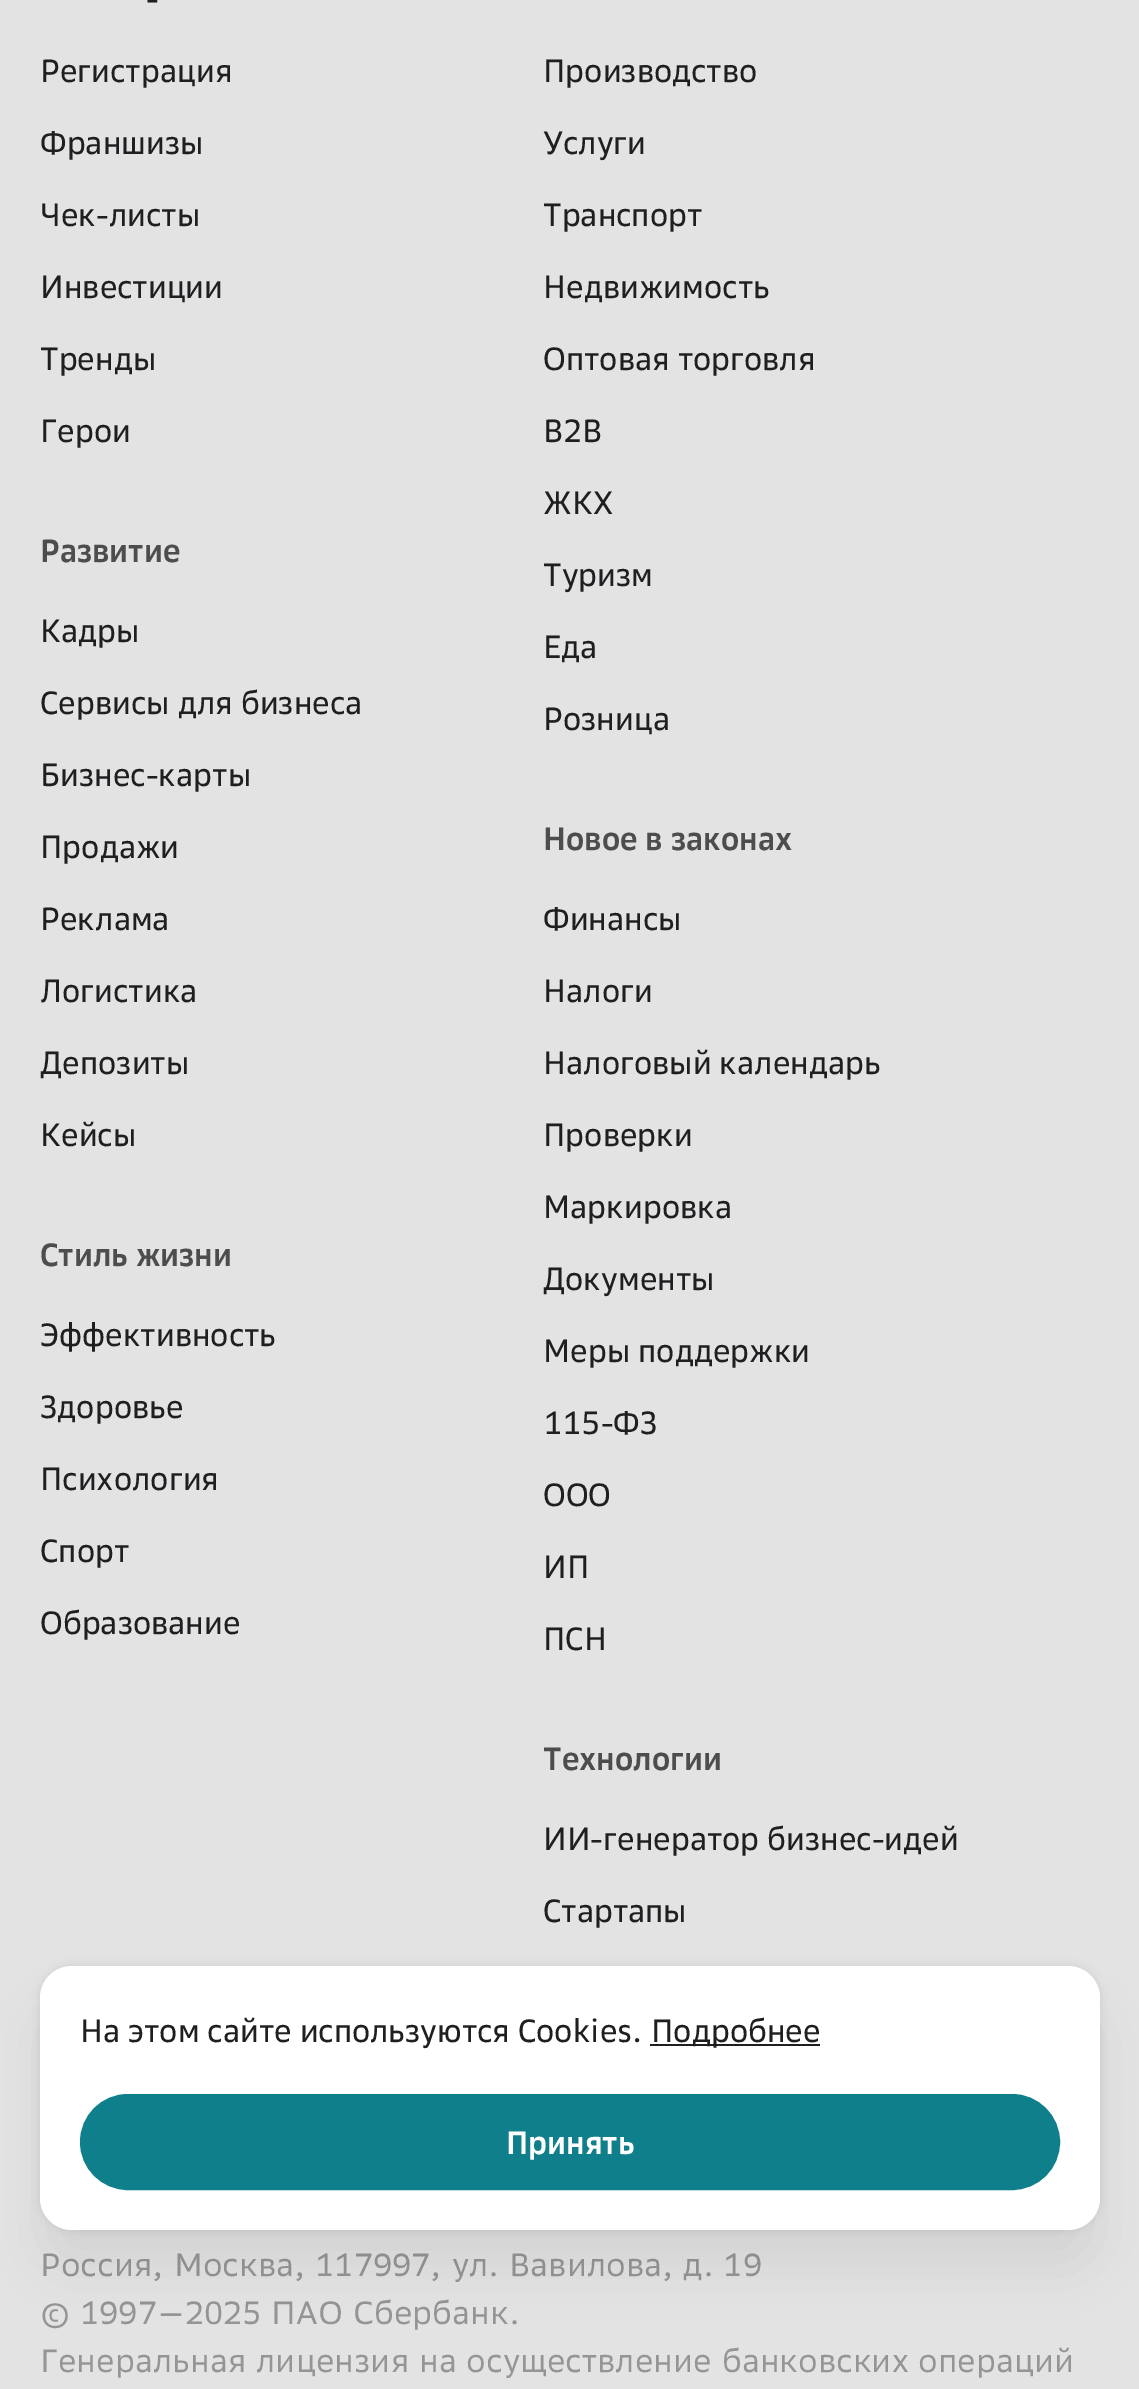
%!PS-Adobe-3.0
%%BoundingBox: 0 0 1139 2389
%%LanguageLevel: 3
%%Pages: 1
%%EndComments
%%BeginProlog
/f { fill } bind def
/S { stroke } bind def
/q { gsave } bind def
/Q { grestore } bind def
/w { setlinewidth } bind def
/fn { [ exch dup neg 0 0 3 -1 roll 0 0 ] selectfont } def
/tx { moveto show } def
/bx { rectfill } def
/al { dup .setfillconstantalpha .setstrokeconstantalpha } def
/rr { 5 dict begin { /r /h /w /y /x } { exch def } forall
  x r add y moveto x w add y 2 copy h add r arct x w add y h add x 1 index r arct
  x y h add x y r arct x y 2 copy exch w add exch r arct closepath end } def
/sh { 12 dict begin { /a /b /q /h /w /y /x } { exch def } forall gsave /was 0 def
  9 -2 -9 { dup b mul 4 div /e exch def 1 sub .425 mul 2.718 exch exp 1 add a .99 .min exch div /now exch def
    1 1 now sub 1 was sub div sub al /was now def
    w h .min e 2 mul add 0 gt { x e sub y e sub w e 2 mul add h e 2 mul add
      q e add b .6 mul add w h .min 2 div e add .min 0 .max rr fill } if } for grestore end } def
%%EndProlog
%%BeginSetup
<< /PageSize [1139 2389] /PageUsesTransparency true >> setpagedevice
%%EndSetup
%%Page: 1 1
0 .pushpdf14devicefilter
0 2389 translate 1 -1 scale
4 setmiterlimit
0.89 setgray
0 0 1139 2389 bx
/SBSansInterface-Regular 32 fn
0.122 0.122 0.133 setrgbcolor
(-) 146 10 tx
(Регистрация) 40 82 tx
(Франшизы) 40 154 tx
(Чек-листы) 40 226 tx
(Инвестиции) 40 298 tx
(Тренды) 40 370 tx
(Герои) 40 442 tx
(Производство) 543 82 tx
(Услуги) 543 154 tx
(Транспорт) 543 226 tx
(Недвижимость) 543 298 tx
(Оптовая торговля) 543 370 tx
(B2B) 543 442 tx
(ЖКХ) 543 514 tx
(Туризм) 543 586 tx
(Еда) 543 658 tx
(Розница) 543 730 tx
/SBSansInterface-SemiBold 32 fn
0.302 setgray
(Развитие) 40 562 tx
/SBSansInterface-Regular 32 fn
0.122 0.122 0.133 setrgbcolor
(Кадры) 40 642 tx
(Сервисы для бизнеса) 40 714 tx
(Бизнес-карты) 40 786 tx
(Продажи) 40 858 tx
(Реклама) 40 930 tx
(Логистика) 40 1002 tx
(Депозиты) 40 1074 tx
(Кейсы) 40 1146 tx
/SBSansInterface-SemiBold 32 fn
0.302 setgray
(Новое в законах) 543 850 tx
/SBSansInterface-Regular 32 fn
0.122 0.122 0.133 setrgbcolor
(Финансы) 543 930 tx
(Налоги) 543 1002 tx
(Налоговый календарь) 543 1074 tx
(Проверки) 543 1146 tx
(Маркировка) 543 1218 tx
(Документы) 543 1290 tx
(Меры поддержки) 543 1362 tx
(115-ФЗ) 543 1434 tx
(ООО) 543 1506 tx
(ИП) 543 1578 tx
(ПСН) 543 1650 tx
/SBSansInterface-SemiBold 32 fn
0.302 setgray
(Стиль жизни) 40 1266 tx
/SBSansInterface-Regular 32 fn
0.122 0.122 0.133 setrgbcolor
(Эффективность) 40 1346 tx
(Здоровье) 40 1418 tx
(Психология) 40 1490 tx
(Спорт) 40 1562 tx
(Образование) 40 1634 tx
/SBSansInterface-SemiBold 32 fn
0.302 setgray
(Технологии) 543 1770 tx
/SBSansInterface-Regular 32 fn
0.122 0.122 0.133 setrgbcolor
(ИИ-генератор бизнес-идей) 543 1850 tx
(Стартапы) 543 1922 tx
/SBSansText-Regular 32 fn
0.584 0.584 0.588 setrgbcolor
(Россия, Москва, 117997, ул. Вавилова, д. 19) 40 2276 tx
(© 1997—2025 ПАО Сбербанк.) 40 2324 tx
(Генеральная лицензия на осуществление банковских операций) 40 2372 tx
0 setgray
40 1966 1060 264 32 4 0.08 sh
52 2018 1036 240 20 28 0.08 sh
1 setgray
40 1966 1060 264 32 rr f
/SBSansInterface-Regular 32 fn
0.122 0.122 0.133 setrgbcolor
(На этом сайте используются Cookies.) 80 2042 tx
650 2044 170 2 bx
(Подробнее) 651 2042 tx
0.063 0.498 0.549 setrgbcolor
82 2096 976 92 46 rr q f Q
4 w
S
/SBSansInterface-SemiBold 32 fn
1 setgray
(Принять) 506 2154 tx
.poppdf14devicefilter showpage
%%EOF
